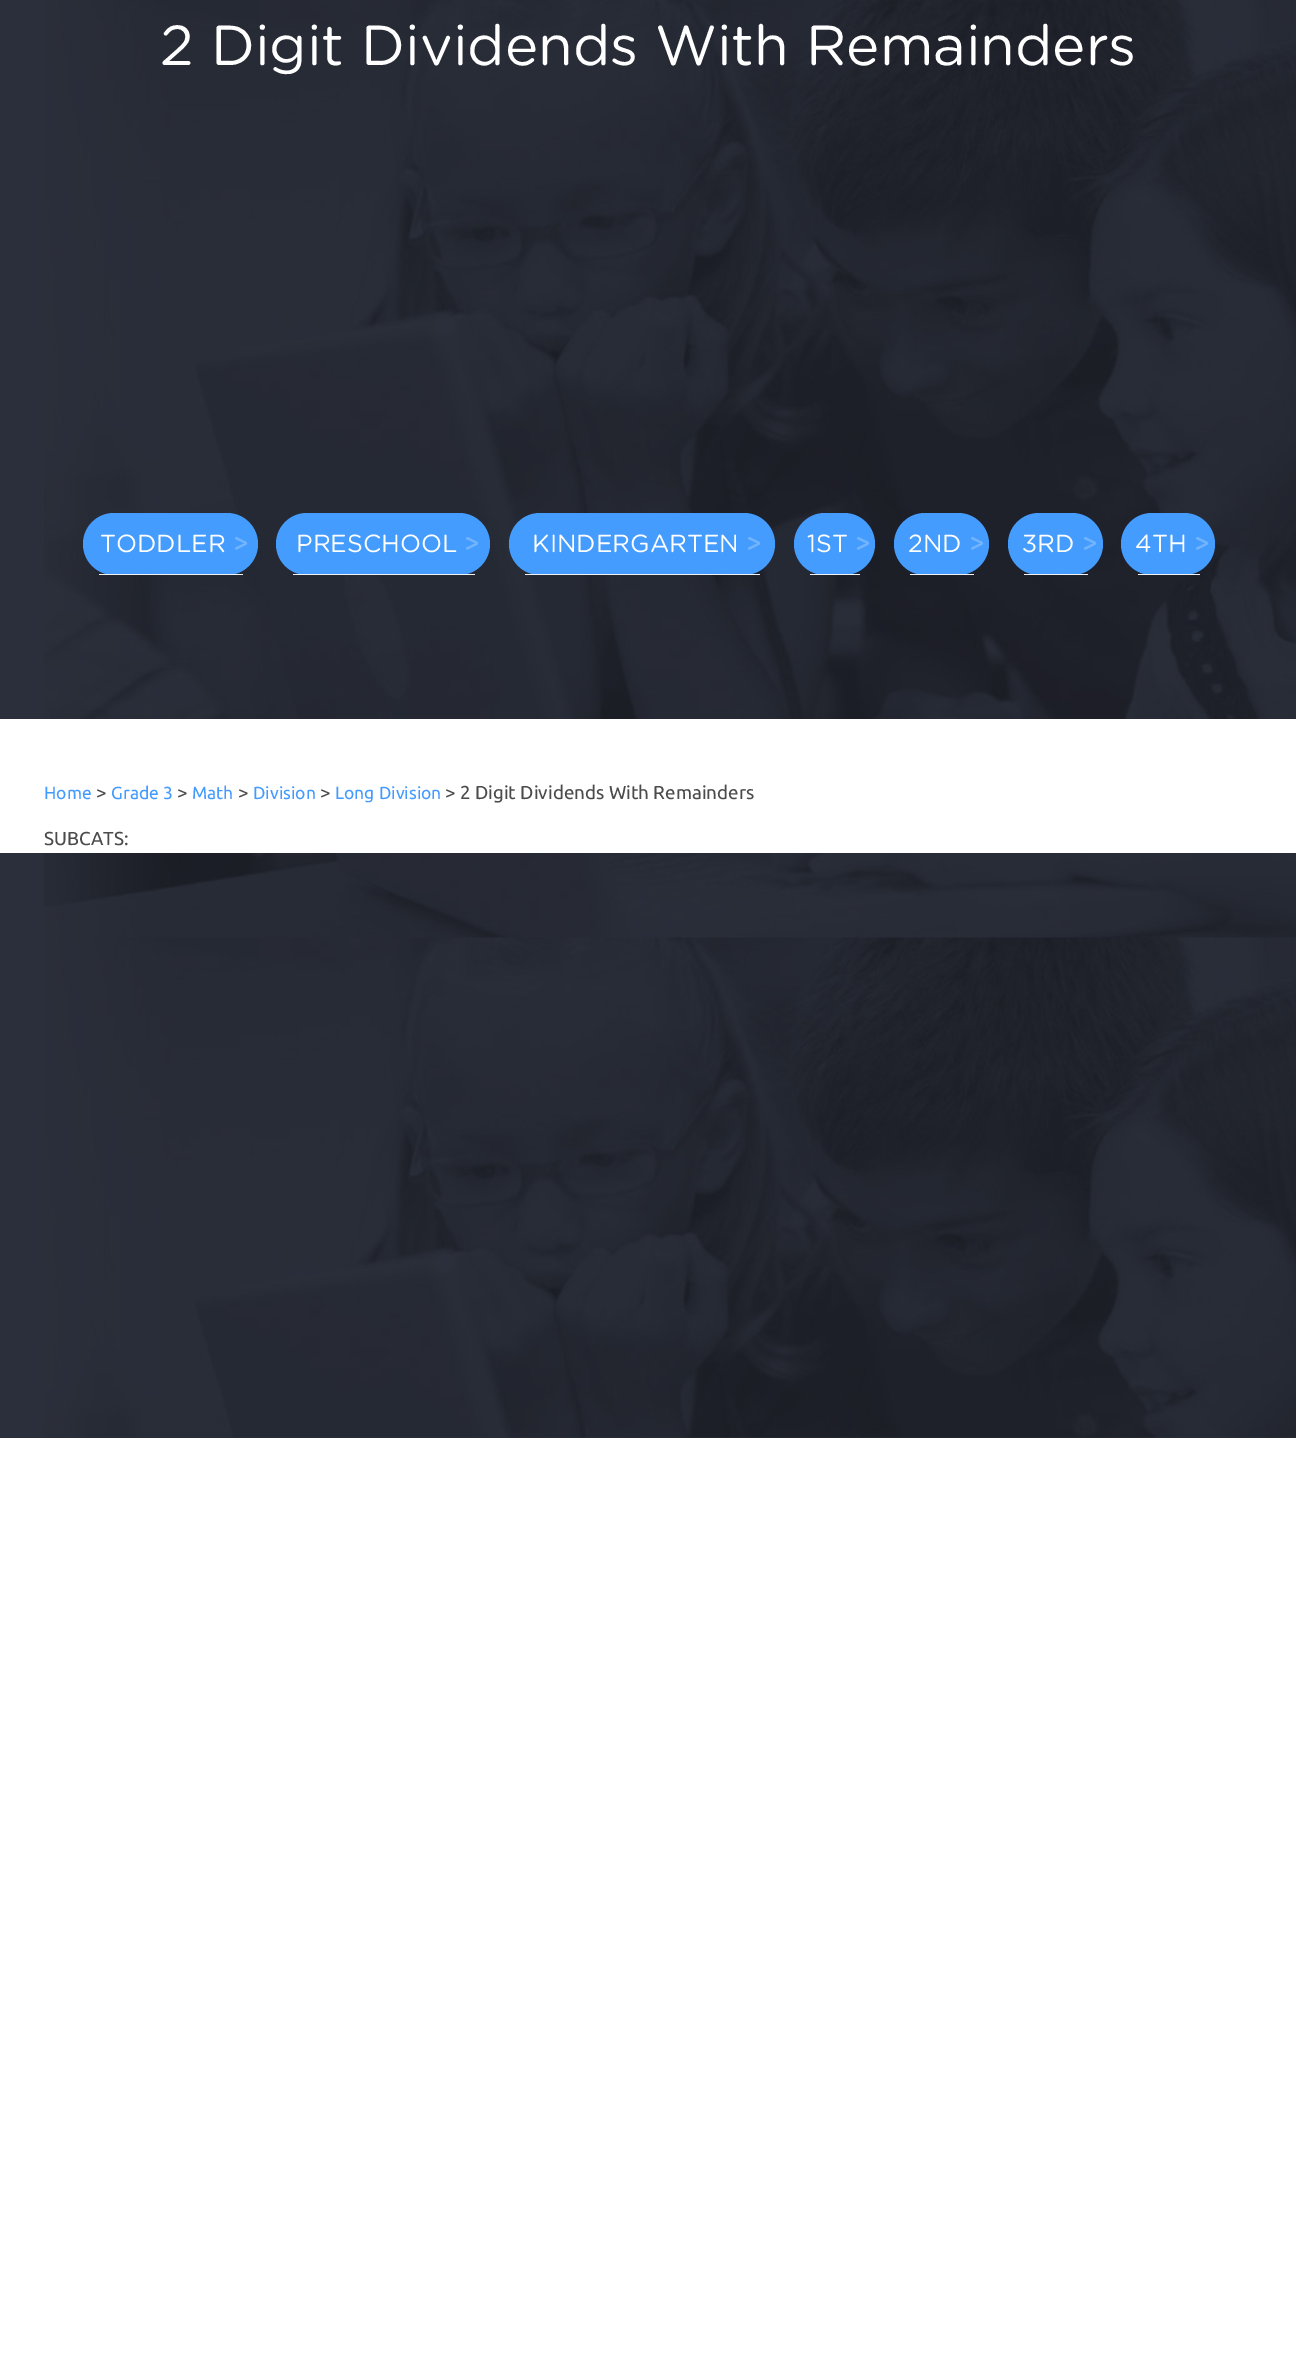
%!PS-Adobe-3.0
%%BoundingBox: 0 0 1296 2361
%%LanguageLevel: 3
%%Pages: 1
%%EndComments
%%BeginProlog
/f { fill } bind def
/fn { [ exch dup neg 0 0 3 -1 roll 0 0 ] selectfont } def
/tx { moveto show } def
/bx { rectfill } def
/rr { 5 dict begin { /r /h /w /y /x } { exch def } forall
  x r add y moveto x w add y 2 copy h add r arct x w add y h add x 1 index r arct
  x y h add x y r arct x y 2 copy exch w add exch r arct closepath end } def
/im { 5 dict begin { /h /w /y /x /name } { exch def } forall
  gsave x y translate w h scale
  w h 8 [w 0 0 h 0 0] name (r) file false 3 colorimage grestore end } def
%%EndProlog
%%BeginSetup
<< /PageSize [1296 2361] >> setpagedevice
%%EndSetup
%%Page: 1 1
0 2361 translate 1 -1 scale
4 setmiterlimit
1 setgray
0 0 1296 2361 bx
0.169 0.184 0.231 setrgbcolor
0 0 1296 1438 bx
(image0.raw) 44 0 1252 1438 im
/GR-Regular 56.25 fn
1 setgray
(2 Digit Dividends With Remainders) 160 65 tx
0.271 0.612 1 setrgbcolor
83 513 175 62 31 rr f
0.949 setgray
99 574 144 1 bx
/GR-Regular 24.75 fn
1 setgray
(TODDLER) 100 552 tx
/GR-Medium 24.75 fn
0.451 0.706 1 setrgbcolor
(>) 233 552 tx
0.271 0.612 1 setrgbcolor
276 513 214 62 31 rr f
0.949 setgray
293 574 182 1 bx
/GR-Regular 24.75 fn
1 setgray
(PRESCHOOL) 296 552 tx
/GR-Medium 24.75 fn
0.451 0.706 1 setrgbcolor
(>) 464 552 tx
0.271 0.612 1 setrgbcolor
509 513 266 62 31 rr f
0.949 setgray
525 574 235 1 bx
/GR-Regular 24.75 fn
1 setgray
(KINDERGARTEN) 532 552 tx
/GR-Medium 24.75 fn
0.451 0.706 1 setrgbcolor
(>) 746 552 tx
0.271 0.612 1 setrgbcolor
794 513 81 62 31 rr f
0.949 setgray
810 574 50 1 bx
/GR-Regular 24.75 fn
1 setgray
(1ST) 807 552 tx
/GR-Medium 24.75 fn
0.451 0.706 1 setrgbcolor
(>) 855 552 tx
0.271 0.612 1 setrgbcolor
894 513 95 62 31 rr f
0.949 setgray
910 574 64 1 bx
/GR-Regular 24.75 fn
1 setgray
(2ND) 908 552 tx
/GR-Medium 24.75 fn
0.451 0.706 1 setrgbcolor
(>) 969 552 tx
0.271 0.612 1 setrgbcolor
1008 513 95 62 31 rr f
0.949 setgray
1024 574 64 1 bx
/GR-Regular 24.75 fn
1 setgray
(3RD) 1022 552 tx
/GR-Medium 24.75 fn
0.451 0.706 1 setrgbcolor
(>) 1082 552 tx
0.271 0.612 1 setrgbcolor
1121 513 94 62 31 rr f
0.949 setgray
1138 574 62 1 bx
/GR-Regular 24.75 fn
1 setgray
(4TH) 1135 552 tx
/GR-Medium 24.75 fn
0.451 0.706 1 setrgbcolor
(>) 1194 552 tx
1 setgray
0 719 1296 134 bx
/Ubuntu-Regular 17.5 fn
0.267 0.608 1 setrgbcolor
(Home) 44 799 tx
/Ubuntu-Regular 18.75 fn
0.294 setgray
(>) 96 799 tx
/Ubuntu-Regular 17.5 fn
0.267 0.608 1 setrgbcolor
(Grade 3) 111 799 tx
/Ubuntu-Regular 18.75 fn
0.294 setgray
(>) 177 799 tx
/Ubuntu-Regular 17.5 fn
0.267 0.608 1 setrgbcolor
(Math) 192 799 tx
/Ubuntu-Regular 18.75 fn
0.294 setgray
(>) 238 799 tx
/Ubuntu-Regular 17.5 fn
0.267 0.608 1 setrgbcolor
(Division) 253 799 tx
/Ubuntu-Regular 18.75 fn
0.294 setgray
(>) 320 799 tx
/Ubuntu-Regular 17.5 fn
0.267 0.608 1 setrgbcolor
(Long Division) 335 799 tx
/Ubuntu-Regular 18.75 fn
0.294 setgray
(> 2 Digit Dividends With Remainders) 445 799 tx
(SUBCATS:) 44 845 tx
showpage
%%EOF
